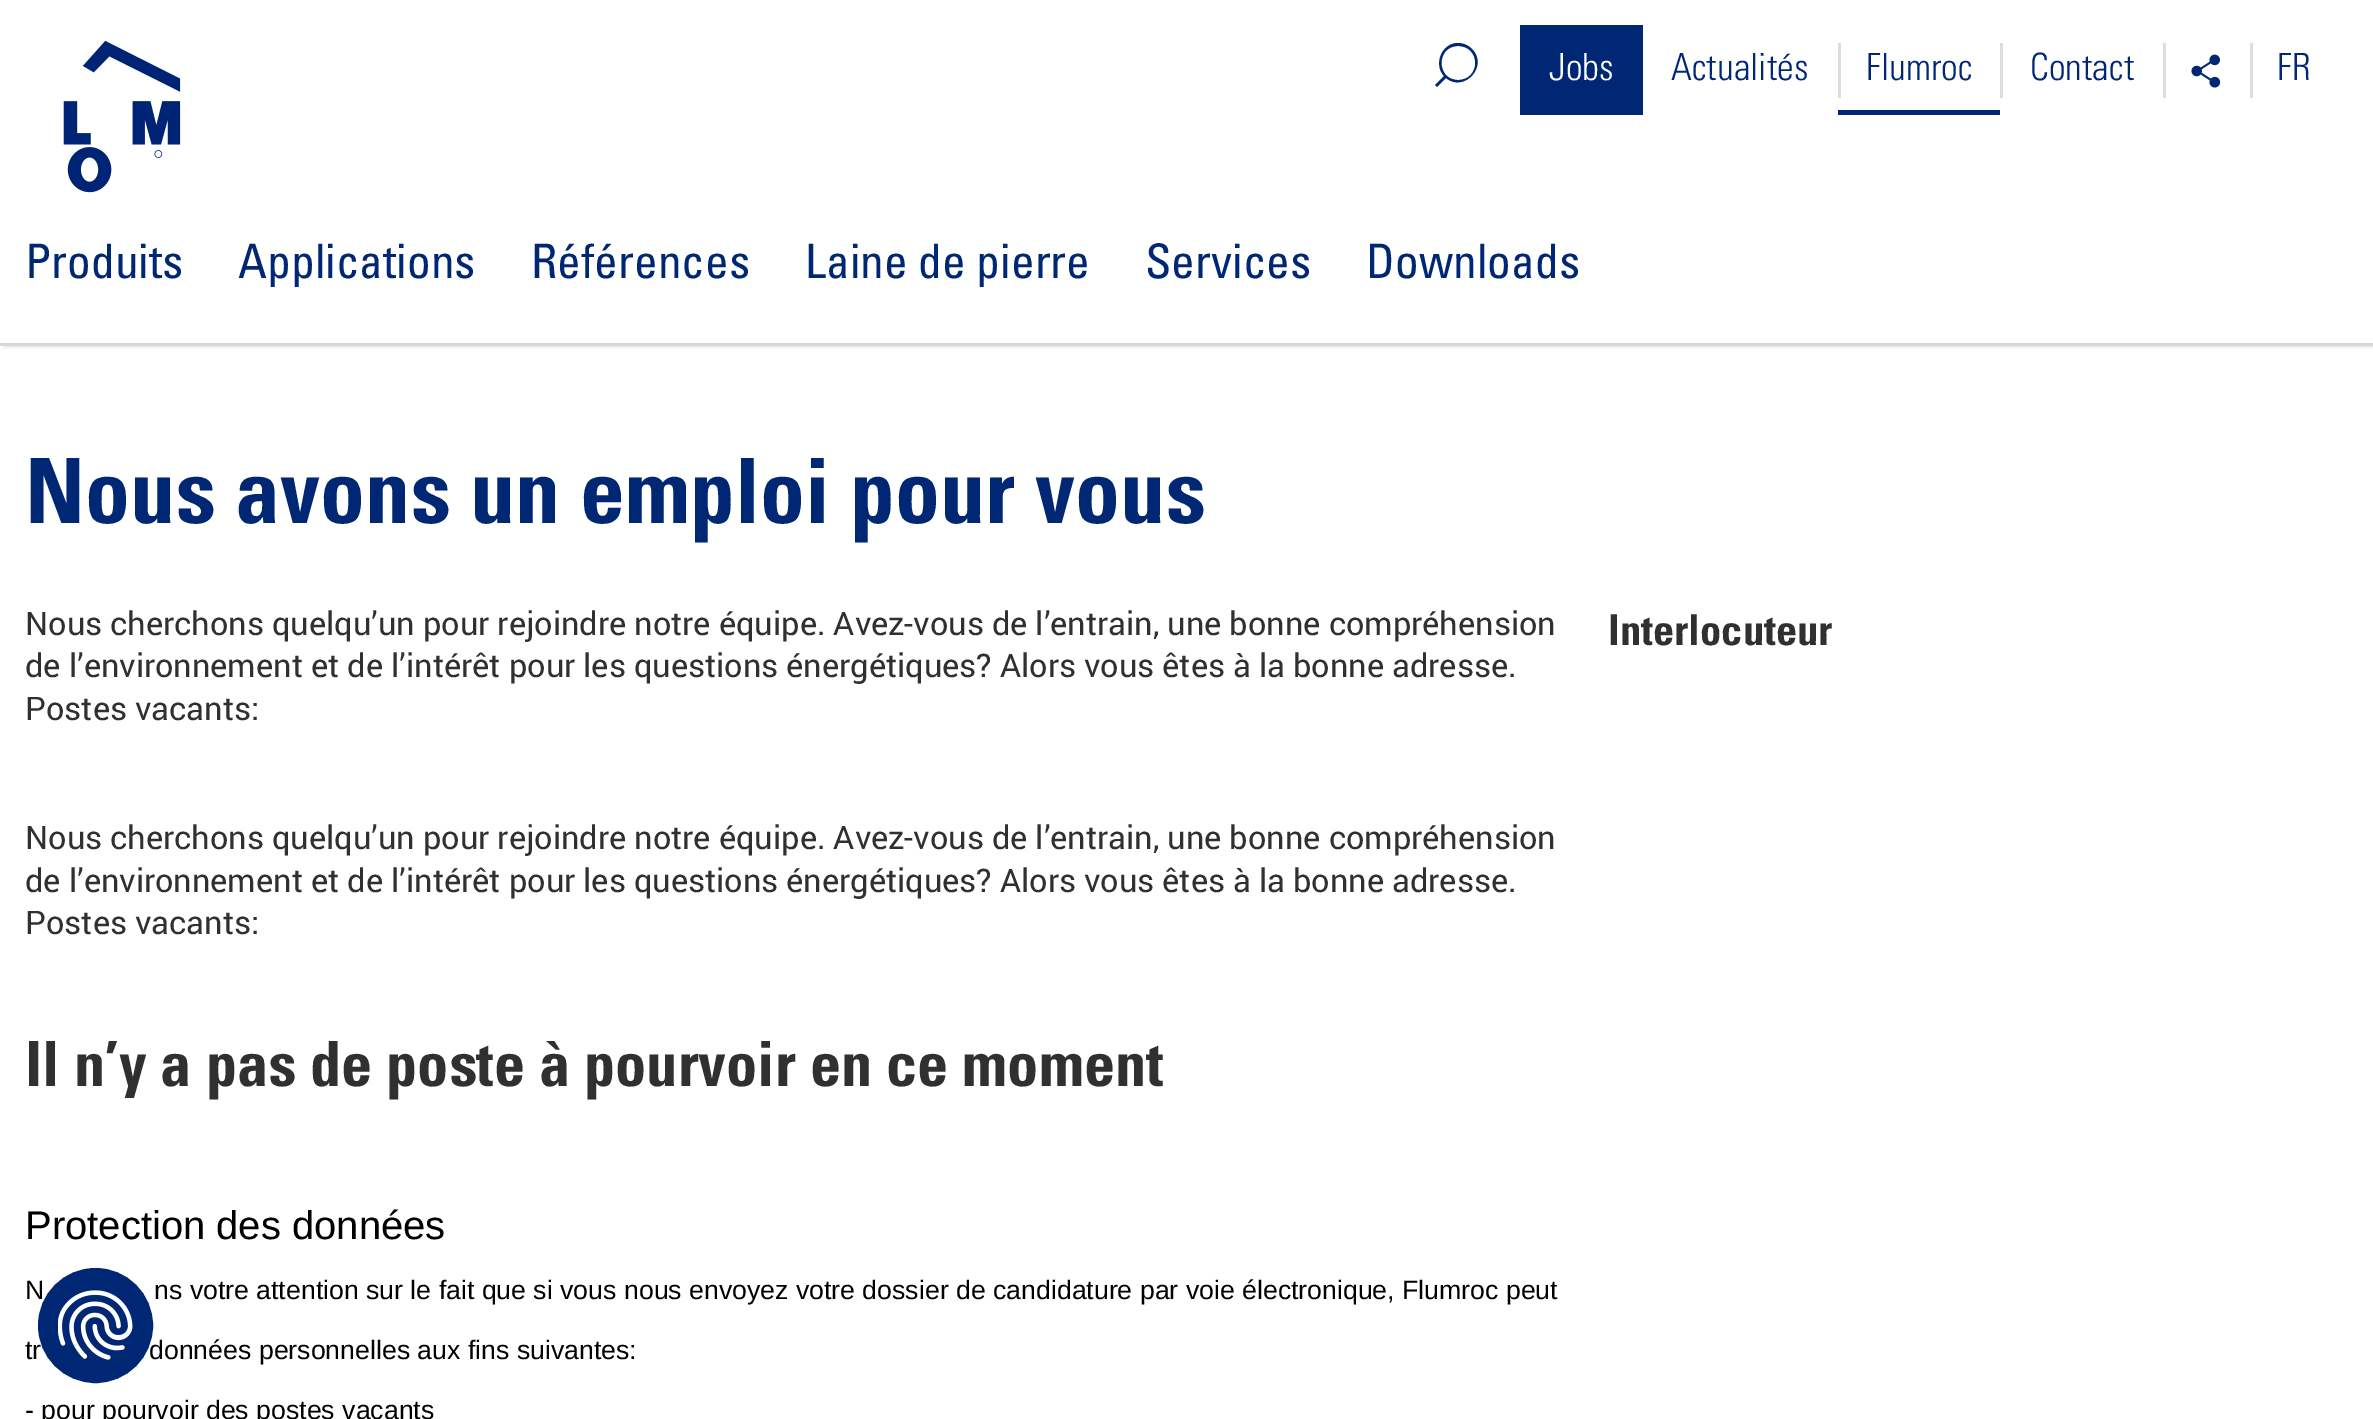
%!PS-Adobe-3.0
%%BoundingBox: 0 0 2373 1419
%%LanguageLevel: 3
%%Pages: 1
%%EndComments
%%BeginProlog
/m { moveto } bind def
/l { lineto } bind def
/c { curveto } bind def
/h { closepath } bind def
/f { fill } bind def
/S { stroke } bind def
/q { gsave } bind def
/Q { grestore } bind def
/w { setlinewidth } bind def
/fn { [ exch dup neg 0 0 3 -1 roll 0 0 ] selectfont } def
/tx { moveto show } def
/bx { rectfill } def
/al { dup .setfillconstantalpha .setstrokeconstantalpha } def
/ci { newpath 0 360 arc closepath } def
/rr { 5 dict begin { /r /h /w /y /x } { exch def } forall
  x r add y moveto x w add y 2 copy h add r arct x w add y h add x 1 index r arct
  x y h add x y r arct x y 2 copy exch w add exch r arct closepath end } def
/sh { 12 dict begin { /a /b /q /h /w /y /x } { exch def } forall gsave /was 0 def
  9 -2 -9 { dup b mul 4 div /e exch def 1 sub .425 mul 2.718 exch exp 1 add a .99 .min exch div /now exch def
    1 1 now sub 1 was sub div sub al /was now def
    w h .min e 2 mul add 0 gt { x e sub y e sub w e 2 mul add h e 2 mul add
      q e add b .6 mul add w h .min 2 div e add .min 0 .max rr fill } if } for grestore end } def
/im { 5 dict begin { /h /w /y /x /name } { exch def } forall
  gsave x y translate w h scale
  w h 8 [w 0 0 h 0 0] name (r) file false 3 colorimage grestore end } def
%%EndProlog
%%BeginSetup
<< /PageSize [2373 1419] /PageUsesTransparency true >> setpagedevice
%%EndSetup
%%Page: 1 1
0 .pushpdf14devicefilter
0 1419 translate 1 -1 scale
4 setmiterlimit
1 setgray
0 0 2373 1419 bx
q
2 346 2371 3 rectclip
0.525 setgray
3 3 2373 345 0 1 0.17 sh
Q
0.847 setgray
0 343 2373 3 bx
0 0.153 0.451 setrgbcolor
1458 43 m 1442 43 1433 64 1444 76 c 1435 85 l 1437 87 l 1446 78 l 1464 93 1489 66 1472 49 c 1468 45 1463 43 1458 43 c h 1458 80 m 1436 80 1436 46 1458 46 c 1481 46 1481 80 1458 80 c h f
1520 25 123 90 bx
/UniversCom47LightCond-Light 37.5 fn
1 setgray
(Jobs) 1549 80 tx
0 0.153 0.451 setrgbcolor
(Actualités) 1671 80 tx
0.867 setgray
1838 43 3 55 bx
0 0.153 0.451 setrgbcolor
(Flumroc) 1866 80 tx
1838 110 162 5 bx
0.867 setgray
2000 43 3 55 bx
0 0.153 0.451 setrgbcolor
(Contact) 2030 80 tx
0.867 setgray
2163 43 3 55 bx
(image0.raw) 2191 54 30 34 im
2250 43 3 55 bx
0 0.153 0.451 setrgbcolor
(FR) 2277 80 tx
(image1.raw) 63 40 118 153 im
/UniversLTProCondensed-Regular 47.5 fn
(Produits) 25 278 tx
(Applications) 238 278 tx
(Références) 531 278 tx
(Laine de pierre) 805 278 tx
(Services) 1145 278 tx
(Downloads) 1366 278 tx
/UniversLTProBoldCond-Bold 90 fn
(Nous avons un emploi pour vous) 25 523 tx
/Roboto-Regular 32.5 fn
0.188 setgray
(Nous cherchons quelqu’un pour rejoindre notre équipe. Avez-vous de l’entrain, une bonne compréhension) 25 635 tx
(de l’environnement et de l’intérêt pour les questions énergétiques? Alors vous êtes à la bonne adresse.) 25 677 tx
(Postes vacants:) 25 720 tx
(Nous cherchons quelqu’un pour rejoindre notre équipe. Avez-vous de l’entrain, une bonne compréhension) 25 849 tx
(de l’environnement et de l’intérêt pour les questions énergétiques? Alors vous êtes à la bonne adresse.) 25 892 tx
(Postes vacants:) 25 934 tx
/UniversLTProBoldCond-Bold 62.5 fn
(Il n’y a pas de poste à pourvoir en ce moment) 25 1086 tx
/LiberationSans-Regular 40 fn
0 setgray
(Protection des données) 25 1239 tx
/LiberationSans-Regular 26.67 fn
(N) 25 1299 tx
(ns votre attention sur le fait que si vous nous envoyez votre dossier de candidature par voie électronique, Flumroc peut) 154 1299 tx
(tr) 25 1359 tx
(données personnelles aux fins suivantes:) 149 1359 tx
(- pour pourvoir des postes vacants) 25 1419 tx
/UniversLTProBoldCond-Bold 42.5 fn
0.188 setgray
(Interlocuteur) 1608 645 tx
0 0.153 0.451 setrgbcolor
95.5 1325.5 56 ci q f Q
3 w
S
(image2.raw) 58 1290 75 70 im
.poppdf14devicefilter showpage
%%EOF
